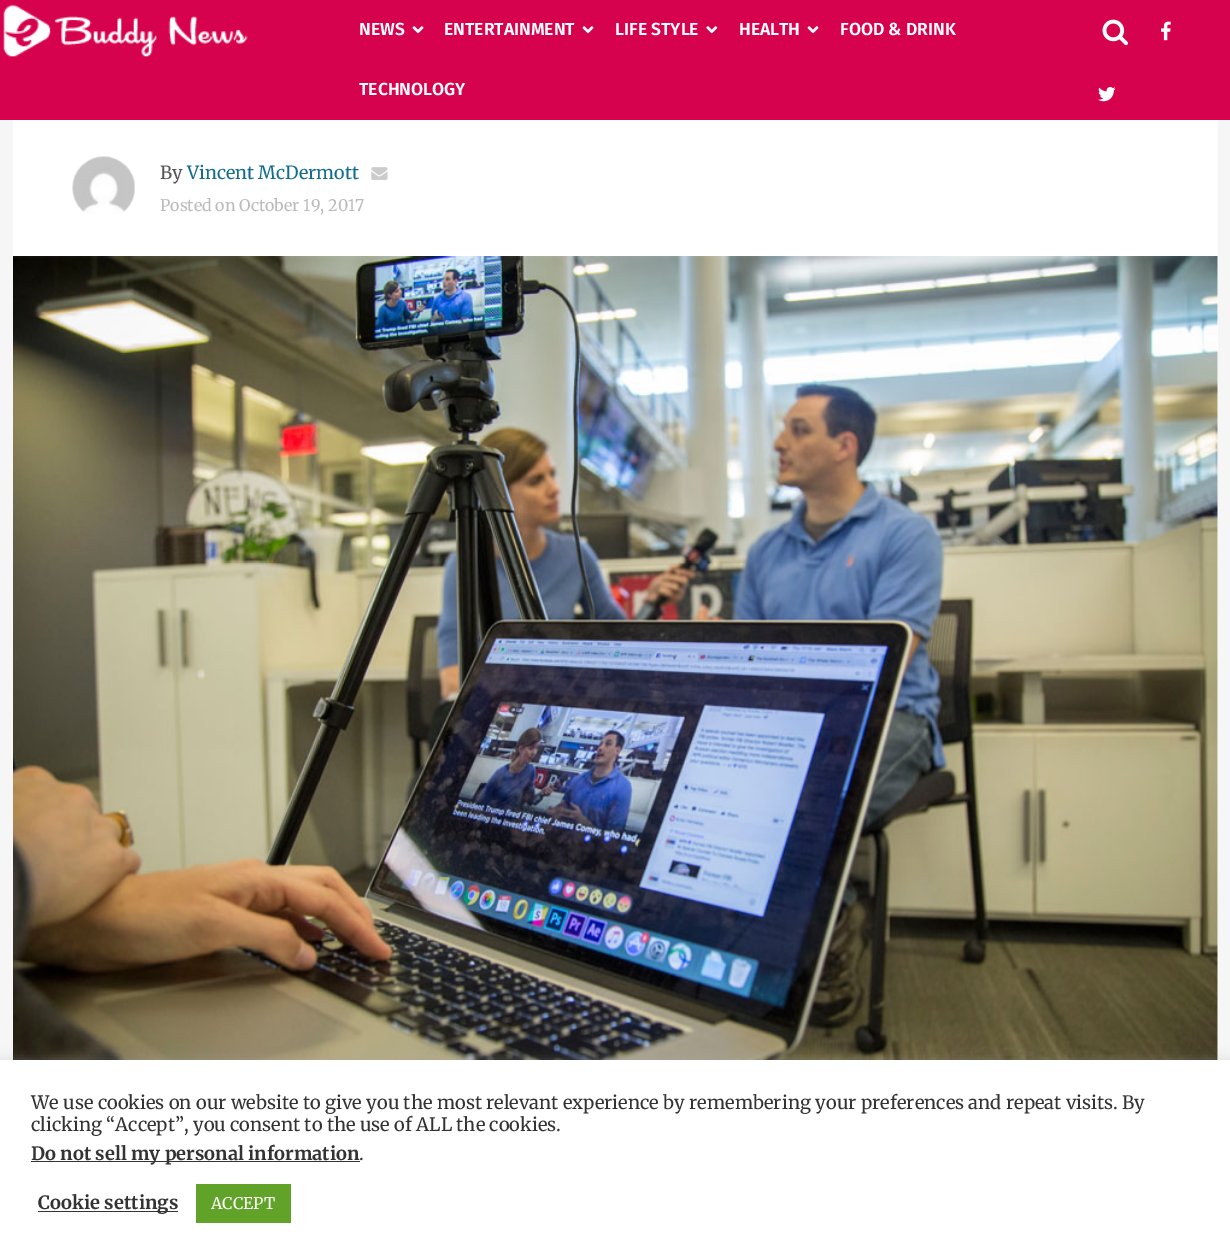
%!PS-Adobe-3.0
%%BoundingBox: 0 0 1230 1259
%%LanguageLevel: 3
%%Pages: 1
%%EndComments
%%BeginProlog
/fn { [ exch dup neg 0 0 3 -1 roll 0 0 ] selectfont } def
/tx { moveto show } def
/bx { rectfill } def
/al { dup .setfillconstantalpha .setstrokeconstantalpha } def
/rr { 5 dict begin { /r /h /w /y /x } { exch def } forall
  x r add y moveto x w add y 2 copy h add r arct x w add y h add x 1 index r arct
  x y h add x y r arct x y 2 copy exch w add exch r arct closepath end } def
/sh { 12 dict begin { /a /b /q /h /w /y /x } { exch def } forall gsave /was 0 def
  9 -2 -9 { dup b mul 4 div /e exch def 1 sub .425 mul 2.718 exch exp 1 add a .99 .min exch div /now exch def
    1 1 now sub 1 was sub div sub al /was now def
    w h .min e 2 mul add 0 gt { x e sub y e sub w e 2 mul add h e 2 mul add
      q e add b .6 mul add w h .min 2 div e add .min 0 .max rr fill } if } for grestore end } def
/im { 5 dict begin { /h /w /y /x /name } { exch def } forall
  gsave x y translate w h scale
  w h 8 [w 0 0 h 0 0] name (r) file false 3 colorimage grestore end } def
%%EndProlog
%%BeginSetup
<< /PageSize [1230 1259] /PageUsesTransparency true >> setpagedevice
%%EndSetup
%%Page: 1 1
0 .pushpdf14devicefilter
0 1259 translate 1 -1 scale
4 setmiterlimit
0.965 setgray
0 0 1230 1259 bx
0.843 0.008 0.302 setrgbcolor
0 0 1230 120 bx
(image0.raw) 3 4 245 53 im
/FiraSans-SemiBold 17.5 fn
1 setgray
(NEWS) 359 35 tx
(image1.raw) 412 26 12 8 im
(ENTERTAINMENT) 444 35 tx
(image1.raw) 582 26 12 8 im
(LIFE STYLE) 615 35 tx
(image2.raw) 706 26 12 8 im
(HEALTH) 739 35 tx
(image1.raw) 807 26 12 8 im
(FOOD & DRINK) 840 35 tx
(TECHNOLOGY) 359 95 tx
(image3.raw) 1102 19 26 27 im
(image4.raw) 1161 21 10 20 im
(image5.raw) 1098 87 18 15 im
13 120 1205 940 bx
(image6.raw) 72 156 63 58 im
/Merriweather-Regular 18 fn
0.333 setgray
(By) 160 179 tx
0.071 0.427 0.569 setrgbcolor
(Vincent McDermott) 187 179 tx
(image7.raw) 371 167 17 13 im
/Merriweather-Regular 16 fn
0.733 setgray
(Posted on October 19, 2017) 160 211 tx
(image8.raw) 13 256 1205 804 im
0.675 0.671 0.671 setrgbcolor
0 1059 1230 200 0 6 0.3 sh
1 setgray
0 1060 1230 199 bx
/Merriweather-Regular 18.33 fn
0.2 setgray
(We use cookies on our website to give you the most relevant experience by remembering your preferences and repeat visits. By) 31 1109 tx
(clicking “Accept”, you consent to the use of ALL the cookies.) 31 1131 tx
31 1161 329 1 bx
/Merriweather-Bold 18.33 fn
(Do not sell my personal information) 31 1160 tx
/Merriweather-Regular 18.33 fn
(.) 359 1160 tx
38 1211 140 1 bx
/Merriweather-Bold 18.33 fn
(Cookie settings) 38 1209 tx
0.38 0.635 0.161 setrgbcolor
196 1184 95 39 bx
/Merriweather-Regular 16 fn
1 setgray
(ACCEPT) 211 1209 tx
.poppdf14devicefilter showpage
%%EOF
